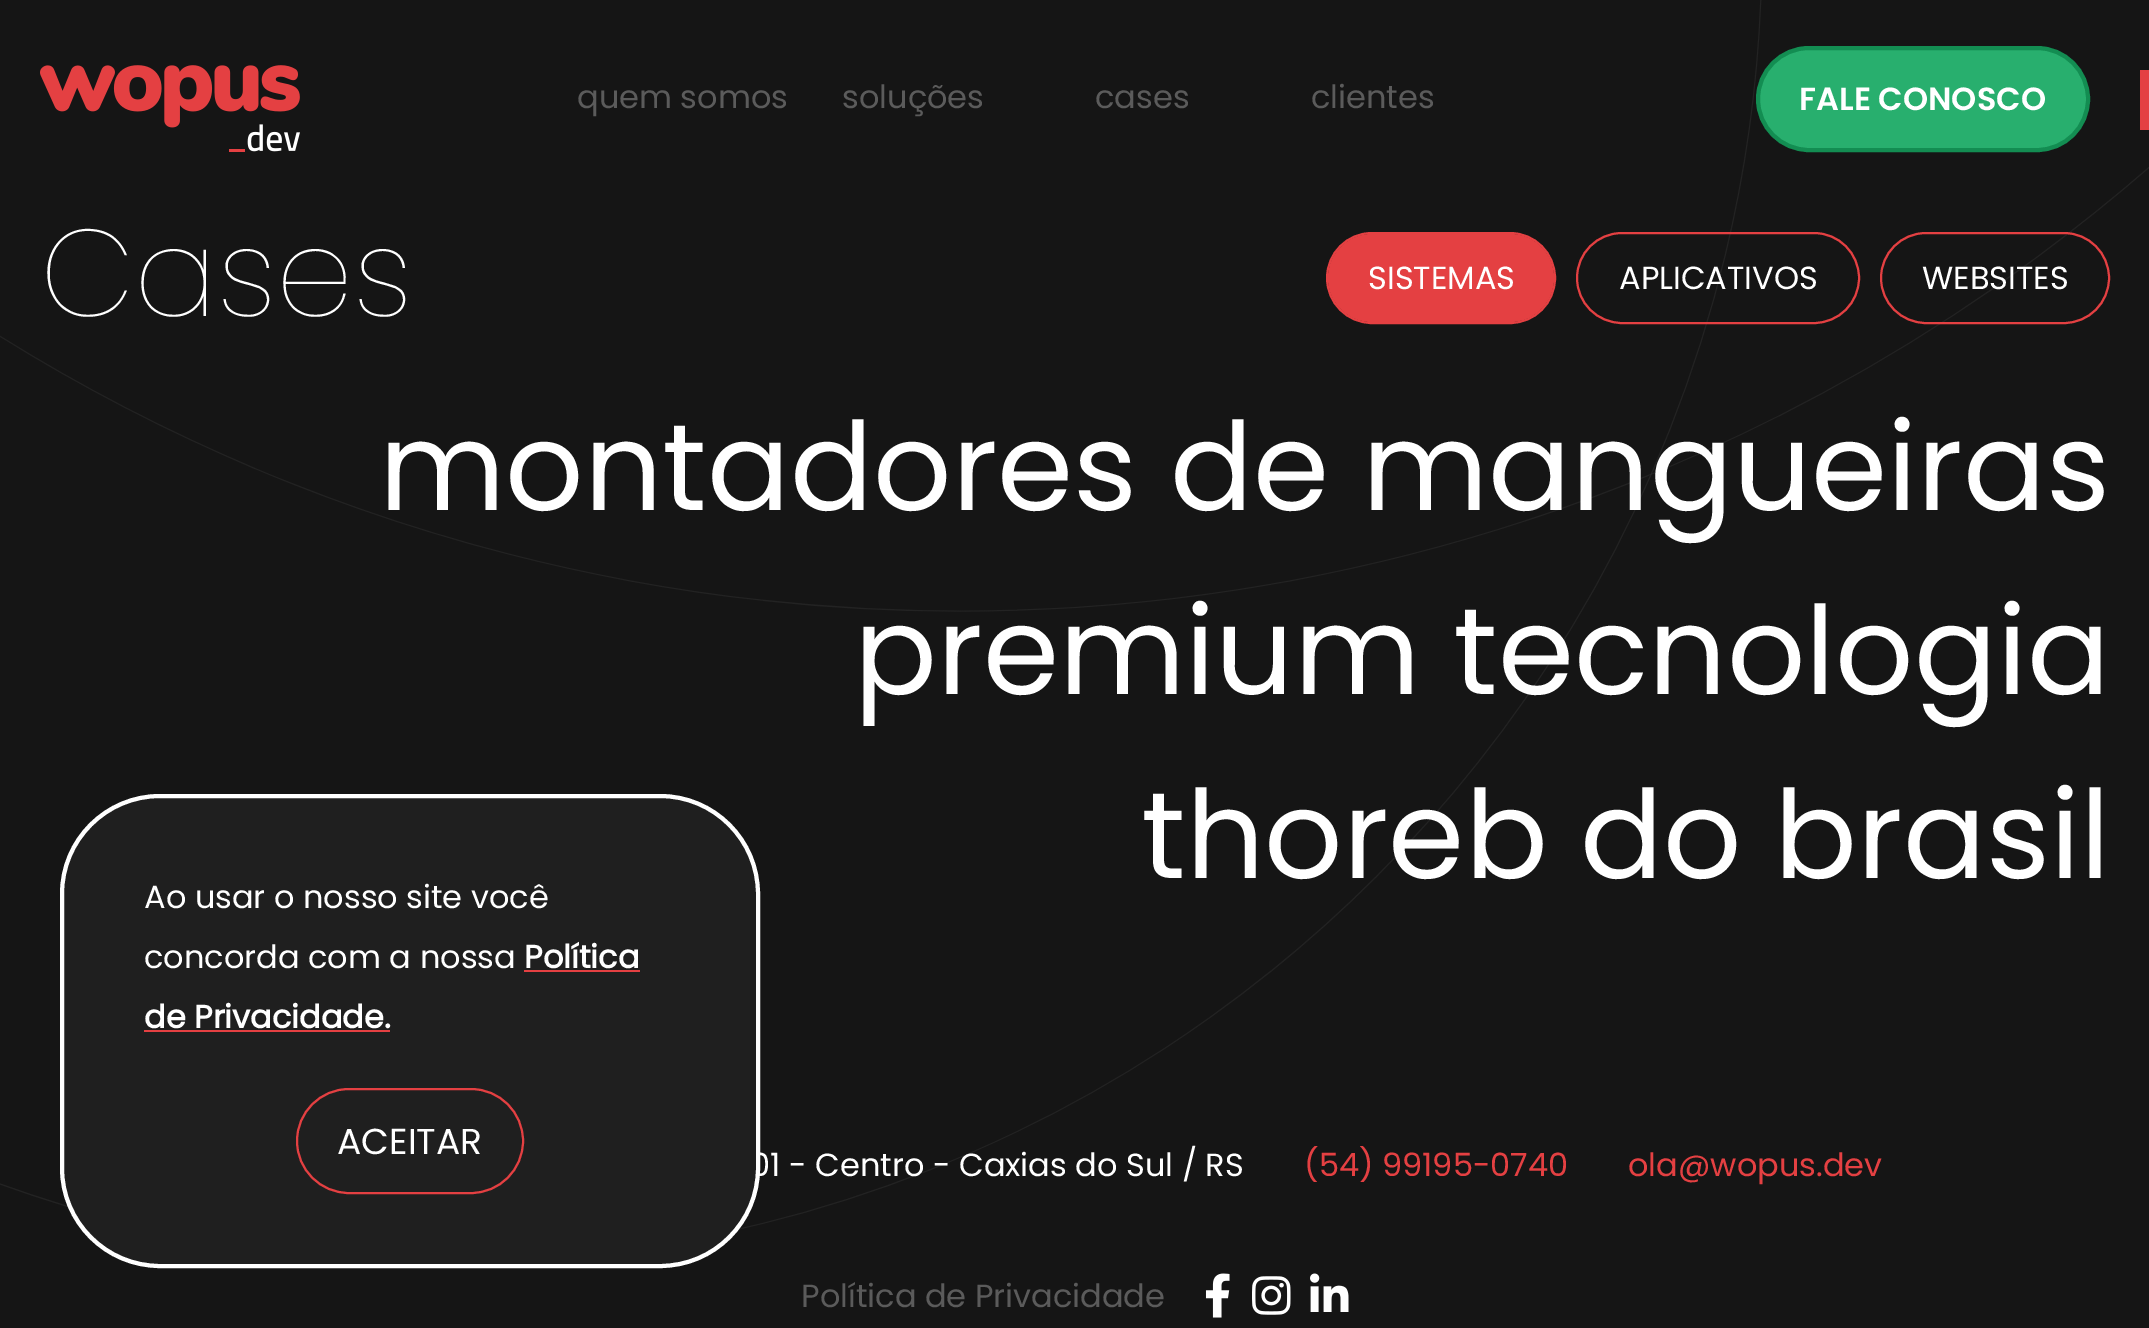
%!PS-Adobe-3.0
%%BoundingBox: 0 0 2149 1328
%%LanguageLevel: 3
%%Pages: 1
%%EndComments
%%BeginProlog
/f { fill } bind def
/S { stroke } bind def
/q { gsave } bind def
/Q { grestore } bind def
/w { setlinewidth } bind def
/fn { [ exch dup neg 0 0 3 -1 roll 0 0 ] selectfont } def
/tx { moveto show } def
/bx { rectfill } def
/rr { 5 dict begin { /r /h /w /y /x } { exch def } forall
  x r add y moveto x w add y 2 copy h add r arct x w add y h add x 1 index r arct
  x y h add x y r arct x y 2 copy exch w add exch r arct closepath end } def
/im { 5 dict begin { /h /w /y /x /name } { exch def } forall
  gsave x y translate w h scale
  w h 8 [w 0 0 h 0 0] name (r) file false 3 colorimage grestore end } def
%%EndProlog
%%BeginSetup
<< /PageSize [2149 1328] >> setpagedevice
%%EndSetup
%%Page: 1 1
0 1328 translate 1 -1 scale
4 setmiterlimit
0.082 setgray
0 0 2149 1328 bx
(image1.raw) 40 65 260 87 im
(image0.raw) 0 0 2149 1230 im
/Poppins-Regular 32 fn
0.357 setgray
(quem somos) 577 108 tx
(soluções) 842 108 tx
(cases) 1095 108 tx
(clientes) 1311 108 tx
0.157 0.686 0.431 setrgbcolor
1758 48 330 102 51 rr q f Q
0.075 0.553 0.322 setrgbcolor
4 w
S
/Poppins-SemiBold 32 fn
1 setgray
(FALE CONOSCO) 1799 110 tx
0.894 0.251 0.259 setrgbcolor
2140 70 9 60 bx
/Poppins-Thin 122.7 fn
1 setgray
(Cases) 40 316 tx
0.894 0.251 0.259 setrgbcolor
2 w
1327 233 228 90 45 rr S
1328 234 226 88 44 rr f
/Poppins-Regular 32 fn
1 setgray
(SISTEMAS) 1368 289 tx
0.894 0.251 0.259 setrgbcolor
1577 233 282 90 45 rr S
1 setgray
(APLICATIVOS) 1619 289 tx
0.894 0.251 0.259 setrgbcolor
1881 233 228 90 45 rr S
1 setgray
(WEBSITES) 1922 289 tx
/Poppins-Regular 122.7 fn
(montadores de mangueiras) 379 510 tx
(premium tecnologia) 854 694 tx
(thoreb do brasil) 1141 878 tx
/Poppins-Regular 32 fn
(01 - Centro - Caxias do Sul / RS) 750 1176 tx
0.122 setgray
62 796 696 470 98 rr q f Q
1 setgray
4 w
S
(Ao usar o nosso site você) 144 908 tx
(concorda com a nossa) 144 968 tx
/Poppins-Bold 32 fn
(Política) 524 968 tx
0.894 0.251 0.259 setrgbcolor
524 970 116 2 bx
1 setgray
(de Privacidade.) 144 1028 tx
0.894 0.251 0.259 setrgbcolor
144 1030 246 2 bx
2 w
297 1089 226 104 52 rr S
/Poppins-Regular 36 fn
1 setgray
(ACEITAR) 337 1154 tx
/Poppins-Regular 32 fn
0.894 0.251 0.259 setrgbcolor
(\(54\) 99195-0740) 1304 1176 tx
(ola@wopus.dev) 1628 1176 tx
0.357 setgray
(Política de Privacidade) 801 1307 tx
(image2.raw) 1205 1273 25 45 im
(image3.raw) 1252 1276 39 39 im
(image4.raw) 1310 1273 39 39 im
showpage
%%EOF
